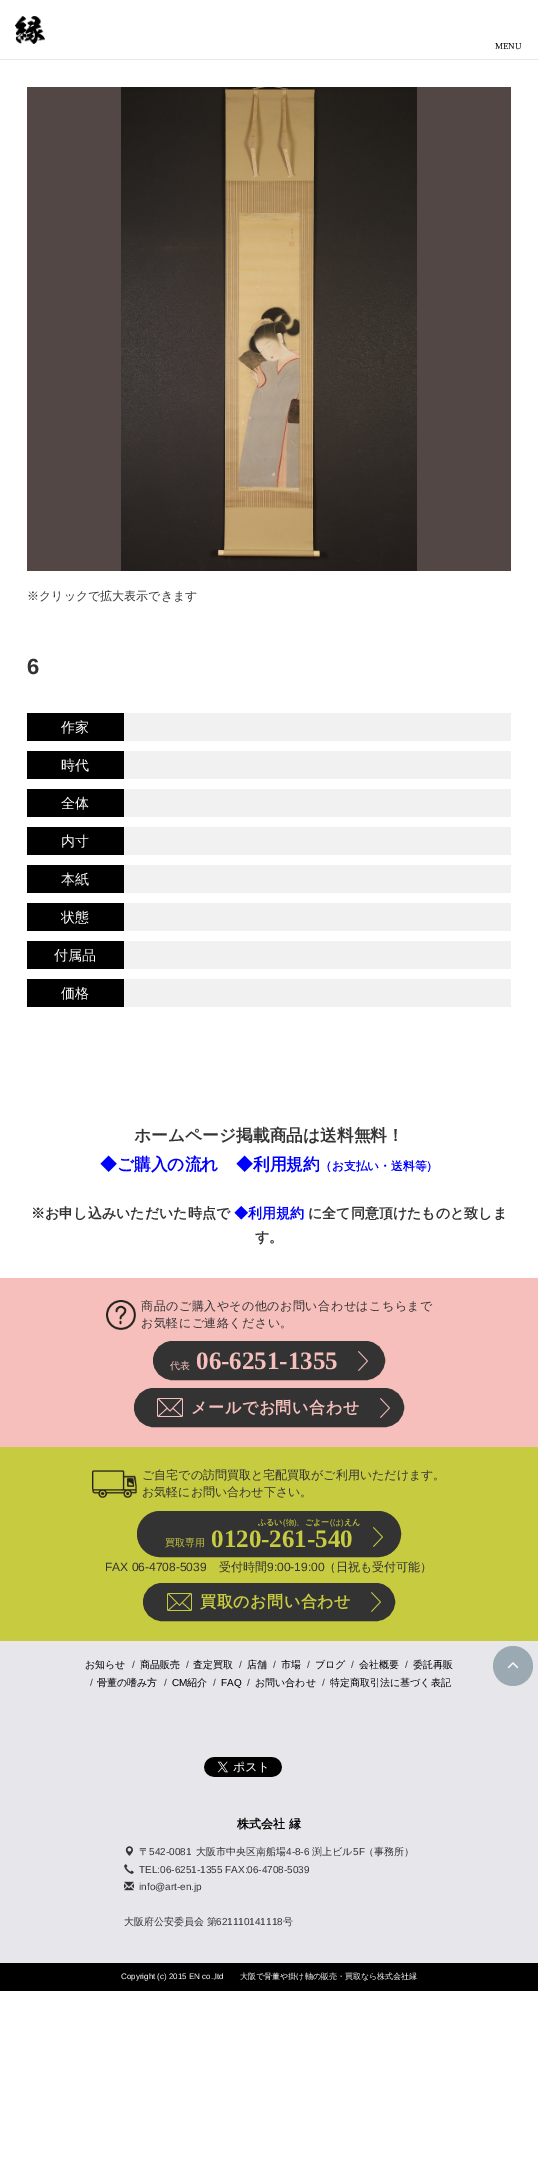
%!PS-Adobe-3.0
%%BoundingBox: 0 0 538 2162
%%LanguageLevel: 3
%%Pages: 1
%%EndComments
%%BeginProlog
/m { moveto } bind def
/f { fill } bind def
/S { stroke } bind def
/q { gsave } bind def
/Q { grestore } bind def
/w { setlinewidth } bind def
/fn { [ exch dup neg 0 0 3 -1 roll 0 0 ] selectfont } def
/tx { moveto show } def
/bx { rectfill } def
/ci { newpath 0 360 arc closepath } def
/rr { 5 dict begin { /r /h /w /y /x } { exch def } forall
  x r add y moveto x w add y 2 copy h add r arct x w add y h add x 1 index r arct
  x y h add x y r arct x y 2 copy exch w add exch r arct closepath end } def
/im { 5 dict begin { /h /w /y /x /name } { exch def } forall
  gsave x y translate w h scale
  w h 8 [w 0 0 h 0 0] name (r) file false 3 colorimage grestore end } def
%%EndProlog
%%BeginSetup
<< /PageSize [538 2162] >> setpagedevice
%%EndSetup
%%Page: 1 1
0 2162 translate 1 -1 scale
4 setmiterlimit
1 setgray
0 0 538 2162 bx
0.906 0.906 0.922 setrgbcolor
0 59 538 1 bx
(image0.raw) 15 16 30 28 im
/LiberationSerif-Regular 9 fn
0 setgray
(MENU) 495 49 tx
0.325 0.278 0.271 setrgbcolor
27 87 484 484 bx
(image1.raw) 121 87 296 484 im
/WenQuanYiZenHei-Medium 12 fn
0.2 setgray
(※クリックで拡大表示できます) 27 600 tx
/LiberationSans-Bold 22 fn
(6) 27 674 tx
0 setgray
27 713 97 28 bx
/WenQuanYiZenHei-Medium 14 fn
1 setgray
(作家) 61 732 tx
0.945 setgray
124 713 387 28 bx
0 setgray
27 751 97 28 bx
1 setgray
(時代) 61 770 tx
0.945 setgray
124 751 387 28 bx
0 setgray
27 789 97 28 bx
1 setgray
(全体) 61 808 tx
0.945 setgray
124 789 387 28 bx
0 setgray
27 827 97 28 bx
1 setgray
(内寸) 61 846 tx
0.945 setgray
124 827 387 28 bx
0 setgray
27 865 97 28 bx
1 setgray
(本紙) 61 884 tx
0.945 setgray
124 865 387 28 bx
0 setgray
27 903 97 28 bx
1 setgray
(状態) 61 922 tx
0.945 setgray
124 903 387 28 bx
0 setgray
27 941 97 28 bx
1 setgray
(付属品) 54 960 tx
0.945 setgray
124 941 387 28 bx
0 setgray
27 979 97 28 bx
1 setgray
(価格) 61 998 tx
0.945 setgray
124 979 387 28 bx
/WenQuanYiZenHei-Bold 16.75 fn
0.2 setgray
(ホームページ掲載商品は送料無料！) 134 1141 tx
0 0 1 setrgbcolor
(◆ご購入の流れ) 100 1170 tx
(◆利用規約) 236 1170 tx
/WenQuanYiZenHei-Bold 11.75 fn
(（お支払い・送料等）) 320 1170 tx
/WenQuanYiZenHei-Bold 14 fn
0.2 setgray
(※お申し込みいただいた時点で) 31 1218 tx
0 0 1 setrgbcolor
(◆利用規約) 234 1218 tx
0.2 setgray
(に全て同意頂けたものと致しま) 308 1218 tx
(す。) 255 1242 tx
0.965 0.749 0.737 setrgbcolor
0 1278 538 169 bx
(image2.raw) 106 1300 30 30 im
/WenQuanYiZenHei-Medium 12 fn
0.2 setgray
141 1310 m 0.5 0 (商品のご購入やその他のお問い合わせはこちらまで) ashow
141 1327 m 0.5 0 (お気軽にご連絡ください。) ashow
154 1342 230 37 18.5 rr q f Q
2 w
S
/WenQuanYiZenHei-Medium 10 fn
0.965 0.749 0.737 setrgbcolor
(代表) 170 1369 tx
/LiberationSerif-Bold 25 fn
(06-6251-1355) 196 1369 tx
(image3.raw) 358 1351 10 20 im
0.2 setgray
135 1389 268 37 18.5 rr q f Q
S
(image4.raw) 157 1398 26 19 im
/WenQuanYiZenHei-Bold 16 fn
0.965 0.749 0.737 setrgbcolor
191 1413 m 0.6 0 (メールでお問い合わせ) ashow
(image5.raw) 380 1398 10 20 im
0.78 0.796 0.251 setrgbcolor
0 1447 538 194 bx
(image6.raw) 92 1470 45 28 im
/WenQuanYiZenHei-Medium 12 fn
0.2 setgray
(ご自宅での訪問買取と宅配買取がご利用いただけます。) 142 1479 tx
(お気軽にお問い合わせ下さい。) 142 1496 tx
138 1512 262 44 22 rr q f Q
S
/WenQuanYiZenHei-Bold 8 fn
0.78 0.796 0.251 setrgbcolor
(ふるい) 258 1525 tx
/LiberationSans-Regular 8 fn
(\() 283 1525 tx
/WenQuanYiZenHei-Medium 8 fn
(物 、) 286 1525 tx
/LiberationSans-Regular 8 fn
(\)) 294 1525 tx
/WenQuanYiZenHei-Bold 8 fn
(ごよー) 305 1525 tx
/LiberationSans-Regular 8 fn
(\() 330 1525 tx
/WenQuanYiZenHei-Medium 8 fn
(は) 333 1525 tx
/LiberationSans-Regular 8 fn
(\)) 341 1525 tx
/WenQuanYiZenHei-Bold 8 fn
(えん) 344 1525 tx
/WenQuanYiZenHei-Medium 10 fn
(買取専用) 165 1546 tx
/LiberationSerif-Bold 25 fn
(0120-261-540) 211 1547 tx
(image7.raw) 373 1527 10 20 im
/LiberationSans-Regular 12 fn
0.2 setgray
(FAX 06-4708-5039) 105 1571 tx
/WenQuanYiZenHei-Medium 12 fn
(受付時間) 219 1571 tx
/LiberationSans-Regular 12 fn
(9:00-19:00) 267 1571 tx
/WenQuanYiZenHei-Medium 12 fn
(（日祝も受付可能）) 324 1571 tx
144 1584 250 36 18 rr q f Q
S
(image8.raw) 167 1593 25 18 im
/WenQuanYiZenHei-Bold 16 fn
0.78 0.796 0.251 setrgbcolor
200 1607 m 0.6 0 (買取のお問い合わせ) ashow
(image7.raw) 371 1592 10 20 im
0.906 0.906 0.922 setrgbcolor
0 1641 538 322 bx
0.608 0.667 0.698 setrgbcolor
513 1666 20 ci f
(image9.raw) 507 1662 12 7 im
/WenQuanYiZenHei-Medium 10 fn
0 setgray
(お知らせ) 85 1668 tx
/LiberationSans-Regular 10 fn
0.2 setgray
(/) 132 1668 tx
/WenQuanYiZenHei-Medium 10 fn
0 setgray
(商品販売) 140 1668 tx
/LiberationSans-Regular 10 fn
0.2 setgray
(/) 186 1668 tx
/WenQuanYiZenHei-Medium 10 fn
0 setgray
(査定買取) 193 1668 tx
/LiberationSans-Regular 10 fn
0.2 setgray
(/) 239 1668 tx
/WenQuanYiZenHei-Medium 10 fn
0 setgray
(店舗) 247 1668 tx
/LiberationSans-Regular 10 fn
0.2 setgray
(/) 273 1668 tx
/WenQuanYiZenHei-Medium 10 fn
0 setgray
(市場) 281 1668 tx
/LiberationSans-Regular 10 fn
0.2 setgray
(/) 307 1668 tx
/WenQuanYiZenHei-Medium 10 fn
0 setgray
(ブログ) 315 1668 tx
/LiberationSans-Regular 10 fn
0.2 setgray
(/) 351 1668 tx
/WenQuanYiZenHei-Medium 10 fn
0 setgray
(会社概要) 359 1668 tx
/LiberationSans-Regular 10 fn
0.2 setgray
(/) 405 1668 tx
/WenQuanYiZenHei-Medium 10 fn
0 setgray
(委託再販) 413 1668 tx
/LiberationSans-Regular 10 fn
0.2 setgray
(/) 90 1686 tx
/WenQuanYiZenHei-Medium 10 fn
0 setgray
(骨董の嗜み方) 97 1686 tx
/LiberationSans-Regular 10 fn
0.2 setgray
(/) 164 1686 tx
0 setgray
(CM) 172 1686 tx
/WenQuanYiZenHei-Medium 10 fn
(紹介) 187 1686 tx
/LiberationSans-Regular 10 fn
0.2 setgray
(/) 213 1686 tx
0 setgray
(FAQ) 221 1686 tx
0.2 setgray
(/) 247 1686 tx
/WenQuanYiZenHei-Medium 10 fn
0 setgray
(お問い合わせ) 255 1686 tx
/LiberationSans-Regular 10 fn
0.2 setgray
(/) 322 1686 tx
/WenQuanYiZenHei-Medium 10 fn
0 setgray
(特定商取引法に基づく表記) 330 1686 tx
(image10.raw) 204 1757 78 20 im
/WenQuanYiZenHei-Bold 12 fn
(株式会社 縁) 237 1828 tx
(image11.raw) 125 1846 8 10 im
/WenQuanYiZenHei-Medium 10 fn
0.2 setgray
(〒) 139 1855 tx
/LiberationSans-Regular 10 fn
(542-0081) 149 1855 tx
/WenQuanYiZenHei-Medium 10 fn
(大阪市中央区南船場) 196 1855 tx
/LiberationSans-Regular 10 fn
(4-8-6) 286 1855 tx
/WenQuanYiZenHei-Medium 10 fn
(渕上ビル) 312 1855 tx
/LiberationSans-Regular 10 fn
(5F) 353 1855 tx
/WenQuanYiZenHei-Medium 10 fn
(（事務所）) 364 1855 tx
(image12.raw) 124 1864 10 10 im
/LiberationSans-Regular 10 fn
(TEL:06-6251-1355 FAX:06-4708-5039) 139 1873 tx
(image13.raw) 124 1881 10 10 im
(info@art-en.jp) 139 1890 tx
/WenQuanYiZenHei-Medium 10 fn
(大阪府公安委員会 第) 124 1925 tx
/LiberationSans-Regular 10 fn
(621110141118) 216 1925 tx
/WenQuanYiZenHei-Medium 10 fn
(号) 283 1925 tx
0 setgray
0 1963 538 28 bx
/LiberationSans-Regular 8 fn
1 setgray
(Copyright \(c\) 2015 EN co.,ltd) 121 1979 tx
/WenQuanYiZenHei-Medium 8 fn
(大阪で骨董や掛け軸の販売・買取なら株式会社縁) 240 1979 tx
showpage
%%EOF
